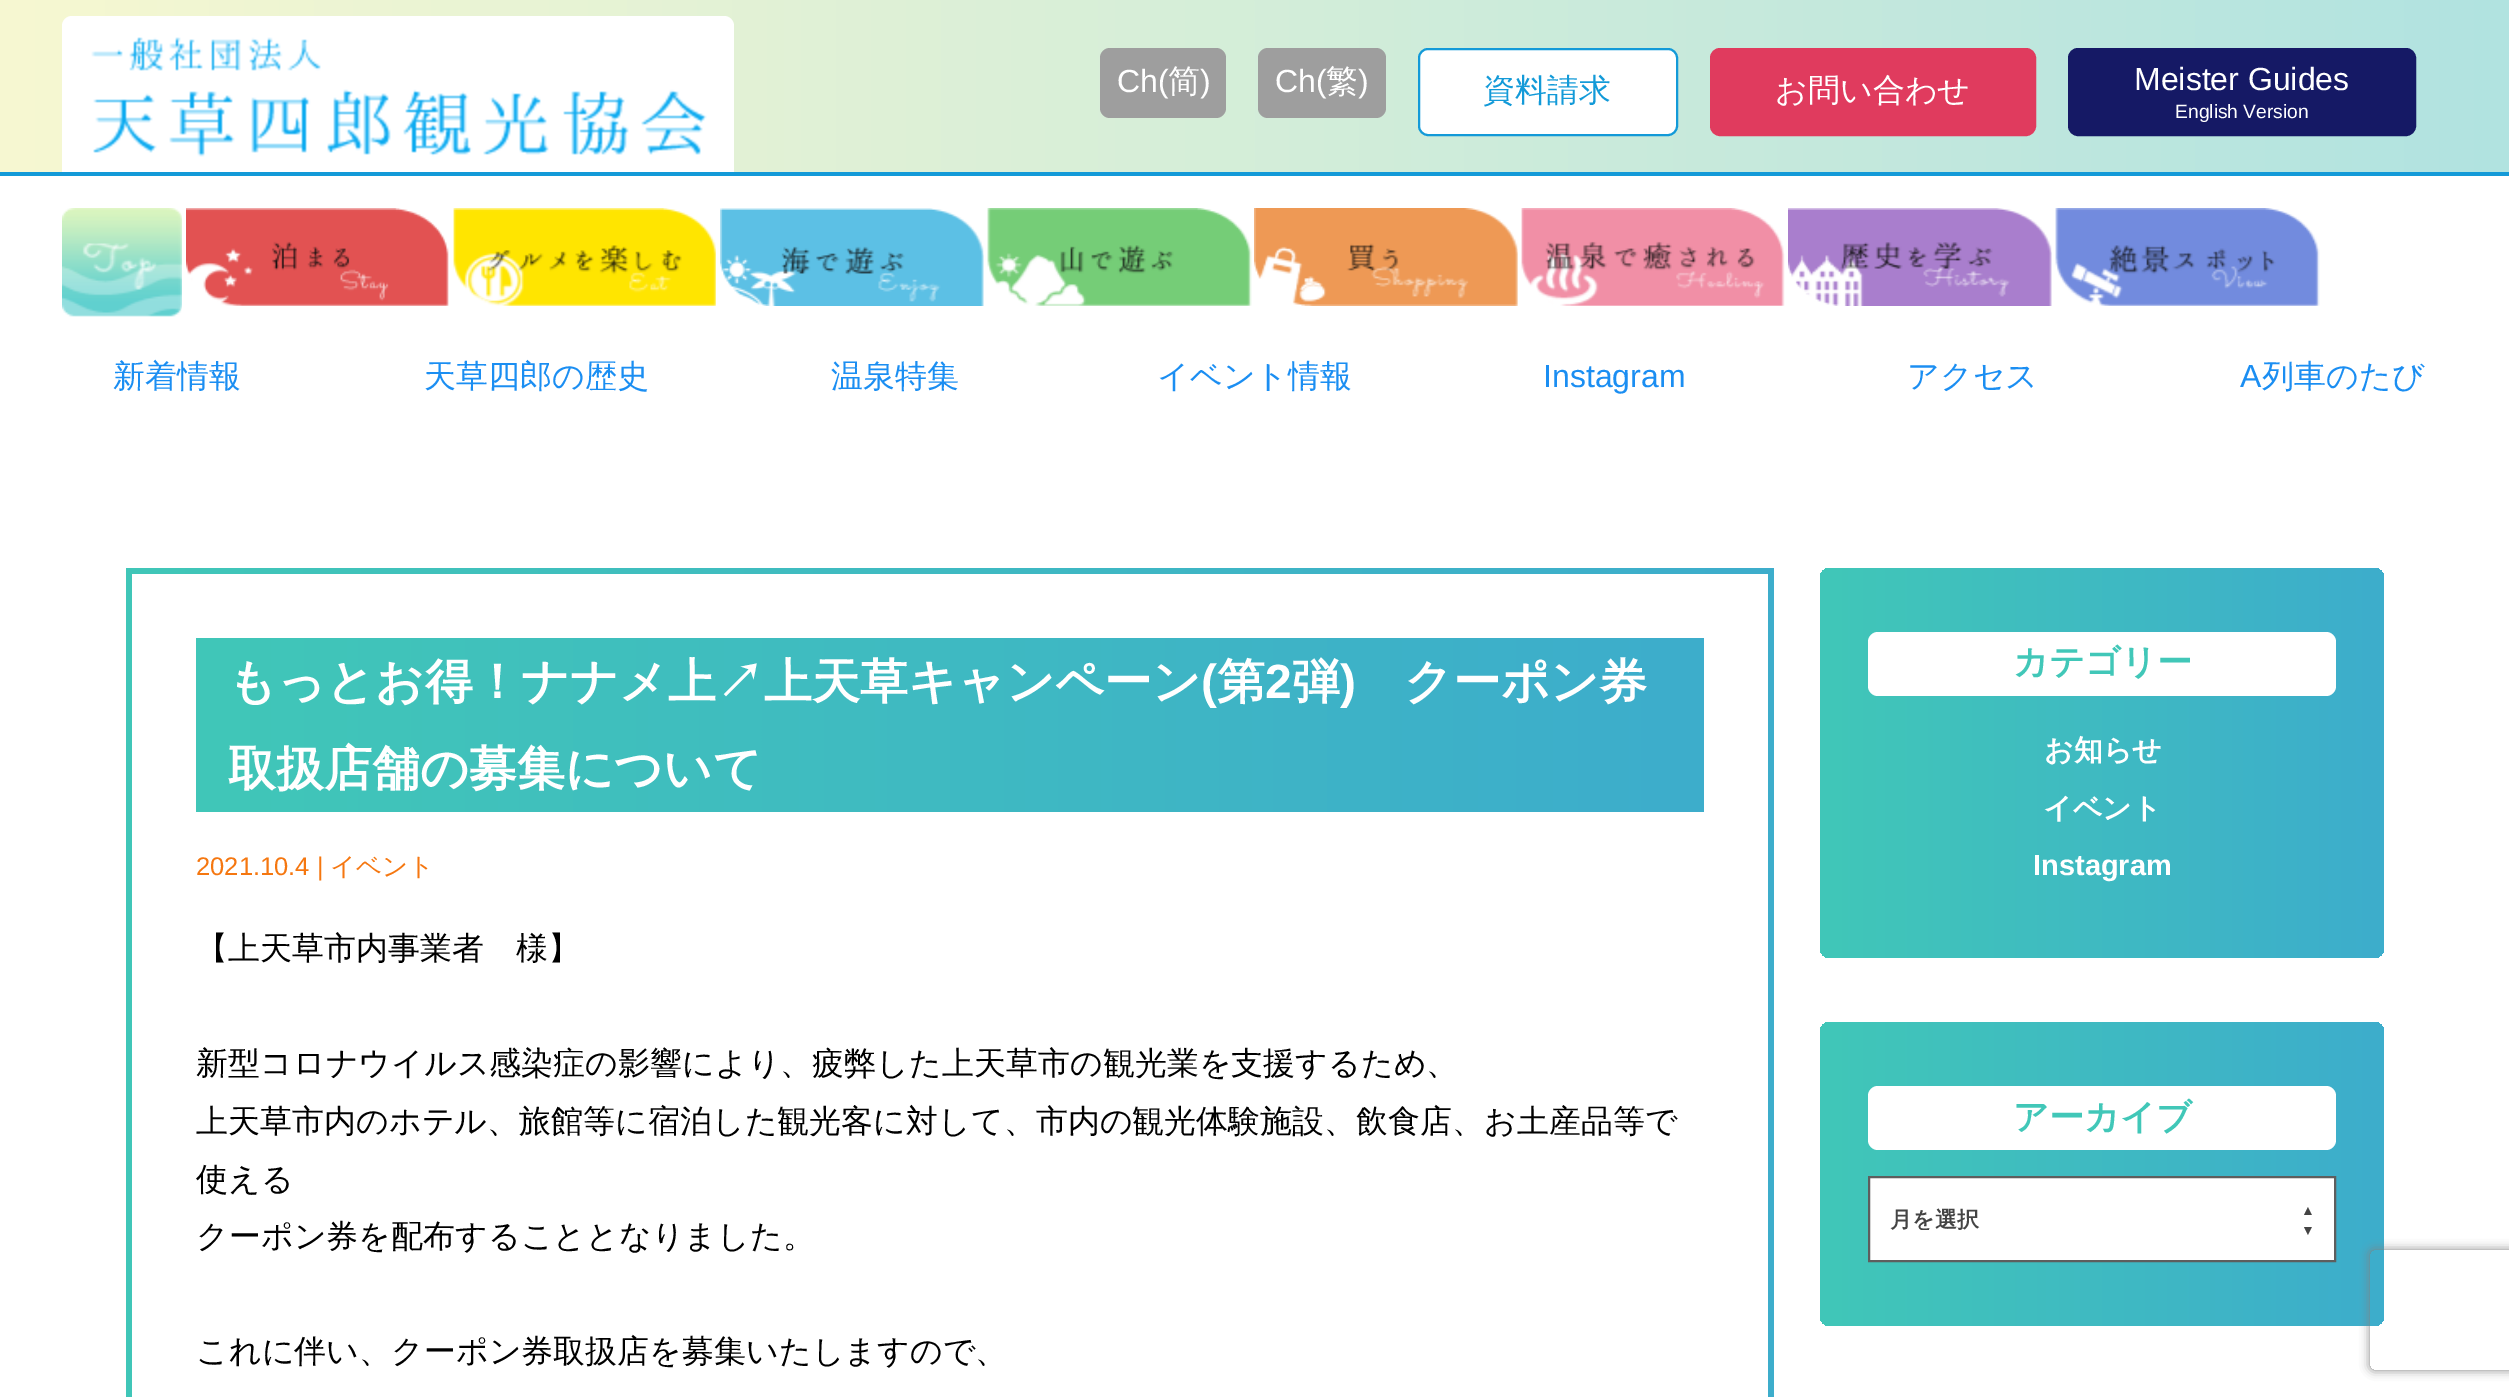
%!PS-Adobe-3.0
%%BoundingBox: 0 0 2509 1397
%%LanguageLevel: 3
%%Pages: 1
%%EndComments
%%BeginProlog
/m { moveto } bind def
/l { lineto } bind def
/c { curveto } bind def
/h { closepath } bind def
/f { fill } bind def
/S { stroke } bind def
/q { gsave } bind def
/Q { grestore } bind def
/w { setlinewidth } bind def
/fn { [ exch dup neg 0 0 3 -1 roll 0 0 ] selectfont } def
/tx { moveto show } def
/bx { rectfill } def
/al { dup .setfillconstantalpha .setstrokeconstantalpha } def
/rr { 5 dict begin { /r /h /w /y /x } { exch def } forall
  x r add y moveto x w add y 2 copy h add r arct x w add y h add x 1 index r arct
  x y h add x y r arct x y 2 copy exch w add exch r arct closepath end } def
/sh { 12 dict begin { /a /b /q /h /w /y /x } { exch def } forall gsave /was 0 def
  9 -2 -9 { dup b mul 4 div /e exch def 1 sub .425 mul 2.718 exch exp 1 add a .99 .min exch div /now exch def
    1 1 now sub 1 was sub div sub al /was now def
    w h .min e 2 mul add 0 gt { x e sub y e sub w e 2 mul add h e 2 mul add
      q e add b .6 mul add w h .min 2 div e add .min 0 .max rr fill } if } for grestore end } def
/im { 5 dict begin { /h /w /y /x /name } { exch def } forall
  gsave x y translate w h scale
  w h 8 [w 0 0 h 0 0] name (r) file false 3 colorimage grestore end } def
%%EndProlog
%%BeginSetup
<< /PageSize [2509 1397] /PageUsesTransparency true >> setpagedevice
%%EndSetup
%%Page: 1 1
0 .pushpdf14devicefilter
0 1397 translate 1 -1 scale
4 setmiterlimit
1 setgray
0 0 2509 1397 bx
q 0 0 m 2509 0 l 2509 172 l 0 172 l h clip newpath
<< /ShadingType 2 /ColorSpace /DeviceRGB /Coords [0 86 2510 86] /Extend [true true] /Function << /FunctionType 2 /Domain [0 1] /C0 [0.969 0.973 0.82] /C1 [0.694 0.89 0.882] /N 1 >> >> shfill Q
72 16 m 724 16 l 729.5 16 734 20.5 734 26 c 734 186 l 62 186 l 62 26 l 62 20.5 66.5 16 72 16 c h f
(image0.raw) 91 37 616 120 im
0.62 setgray
1100 48 126 70 10 rr f
/LiberationSans-Regular 32 fn
1 setgray
(Ch\() 1117 92 tx
/WenQuanYiZenHei-Medium 32 fn
(简) 1168 92 tx
/LiberationSans-Regular 32 fn
(\)) 1200 92 tx
0.62 setgray
1258 48 128 70 10 rr f
1 setgray
(Ch\() 1275 92 tx
/WenQuanYiZenHei-Medium 32 fn
(繁) 1326 92 tx
/LiberationSans-Regular 32 fn
(\)) 1358 92 tx
1419 49 258 86 9 rr q f Q
0.075 0.604 0.847 setrgbcolor
2 w
S
/WenQuanYiZenHei-Medium 32 fn
(資料請求) 1483 101 tx
0.878 0.231 0.369 setrgbcolor
1711 49 324 86 9 rr q f Q
S
1 setgray
(お問い合わせ) 1775 101 tx
0.082 0.098 0.396 setrgbcolor
2069 49 346 86 9 rr q f Q
S
/LiberationSans-Regular 32 fn
1 setgray
(Meister Guides) 2134 90 tx
/LiberationSans-Regular 19.25 fn
(English Version) 2175 118 tx
0.075 0.604 0.847 setrgbcolor
0 172 2509 4 bx
(image1.raw) 62 208 120 109 im
(image2.raw) 186 208 263 98 im
(image3.raw) 453 208 263 98 im
(image4.raw) 720 208 264 98 im
(image5.raw) 987 208 265 98 im
(image6.raw) 1254 208 264 98 im
(image7.raw) 1521 208 264 98 im
(image8.raw) 1788 208 264 98 im
(image9.raw) 2055 208 265 98 im
/WenQuanYiZenHei-Medium 32 fn
0.106 0.557 0.949 setrgbcolor
(新着情報) 113 387 tx
(天草四郎の歴史) 424 387 tx
(温泉特集) 831 387 tx
(イベント情報) 1157 387 tx
/LiberationSans-Regular 32 fn
(Instagram) 1543 387 tx
/WenQuanYiZenHei-Medium 32 fn
(アクセス) 1907 387 tx
/LiberationSans-Regular 32 fn
(A) 2240 387 tx
/WenQuanYiZenHei-Medium 32 fn
(列車のたび) 2262 387 tx
q 126 568 m 1774 568 l 1774 1397 l 126 1397 l h clip newpath
<< /ShadingType 2 /ColorSpace /DeviceRGB /Coords [126 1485 1774 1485] /Extend [true true] /Function << /FunctionType 2 /Domain [0 1] /C0 [0.255 0.78 0.722] /C1 [0.239 0.678 0.8] /N 1 >> >> shfill Q
1 setgray
132 574 1636 823 bx
q 196 638 m 1704 638 l 1704 812 l 196 812 l h clip newpath
<< /ShadingType 2 /ColorSpace /DeviceRGB /Coords [196 725 1704 725] /Extend [true true] /Function << /FunctionType 2 /Domain [0 1] /C0 [0.255 0.78 0.722] /C1 [0.239 0.678 0.8] /N 1 >> >> shfill Q
/WenQuanYiZenHei-Bold 48 fn
(もっとお得！ナナメ上↗上天草キャンペーン) 228 698 tx
/LiberationSans-Bold 48 fn
(\() 1201 698 tx
/WenQuanYiZenHei-Bold 48 fn
(第) 1217 698 tx
/LiberationSans-Bold 48 fn
(2) 1265 698 tx
/WenQuanYiZenHei-Bold 48 fn
(弾) 1292 698 tx
/LiberationSans-Bold 48 fn
(\)) 1340 698 tx
/WenQuanYiZenHei-Bold 48 fn
(クーポン券) 1404 698 tx
(取扱店舗の募集について) 228 785 tx
/LiberationSans-Regular 25.5 fn
0.961 0.467 0.063 setrgbcolor
(2021.10.4 |) 196 875 tx
/WenQuanYiZenHei-Medium 25.5 fn
(イベント) 330 875 tx
/WenQuanYiZenHei-Medium 32 fn
0 setgray
(【上天草市内事業者　様】) 196 959 tx
(新型コロナウイルス感染症の影響により、疲弊した上天草市の観光業を支援するため、) 196 1074 tx
(上天草市内のホテル、旅館等に宿泊した観光客に対して、市内の観光体験施設、飲食店、お土産品等で) 196 1132 tx
(使える) 196 1190 tx
(クーポン券を配布することとなりました。) 196 1247 tx
(これに伴い、クーポン券取扱店を募集いたしますので、) 196 1362 tx
q 1820 568 564 390 10 rr clip newpath
<< /ShadingType 2 /ColorSpace /DeviceRGB /Coords [1820 763 2384 763] /Extend [true true] /Function << /FunctionType 2 /Domain [0 1] /C0 [0.255 0.78 0.722] /C1 [0.239 0.678 0.8] /N 1 >> >> shfill Q
1 setgray
1868 632 468 64 10 rr f
/WenQuanYiZenHei-Bold 35.25 fn
0.255 0.78 0.722 setrgbcolor
(カテゴリー) 2013 674 tx
/WenQuanYiZenHei-Bold 29 fn
1 setgray
(お知らせ) 2044 760 tx
(イベント) 2043 818 tx
/LiberationSans-Bold 29 fn
(Instagram) 2033 875 tx
q 1820 1022 564 304 10 rr clip newpath
<< /ShadingType 2 /ColorSpace /DeviceRGB /Coords [1820 1174 2384 1174] /Extend [true true] /Function << /FunctionType 2 /Domain [0 1] /C0 [0.255 0.78 0.722] /C1 [0.239 0.678 0.8] /N 1 >> >> shfill Q
1868 1086 468 64 10 rr f
/WenQuanYiZenHei-Bold 35.25 fn
0.255 0.78 0.722 setrgbcolor
(アーカイブ) 2013 1129 tx
1 setgray
1869 1177 m 2335 1177 l 2335 1261 l 1869 1261 l h q f Q
0.369 setgray
S
q
1890 1208 424 22 rectclip
/WenQuanYiZenHei-Bold 22 fn
0.267 setgray
(月を選択) 1890 1227 tx
Q
/LiberationSans-Bold 14 fn
0.267 setgray
(▲) 2301 1215 tx
(▼) 2301 1235 tx
q
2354 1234 m 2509 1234 l 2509 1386 l 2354 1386 l h 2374 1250 m 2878 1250 l 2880 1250 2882 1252 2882 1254 c 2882 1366 l 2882 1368 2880 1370 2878 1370 c 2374 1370 l 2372 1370 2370 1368 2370 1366 c 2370 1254 l 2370 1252 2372 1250 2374 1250 c h eoclip newpath
0.502 setgray
2370 1250 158 120 4 5 1 sh
Q
.poppdf14devicefilter showpage
%%EOF
